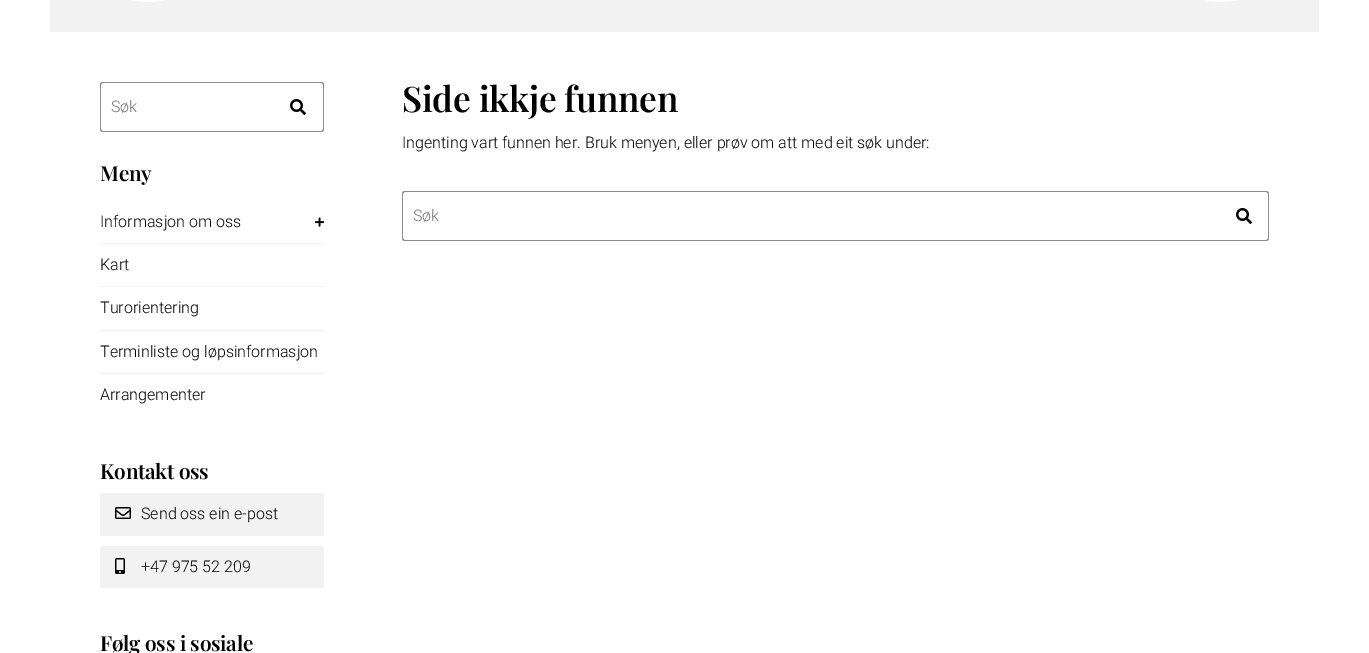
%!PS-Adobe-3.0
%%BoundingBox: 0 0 1369 653
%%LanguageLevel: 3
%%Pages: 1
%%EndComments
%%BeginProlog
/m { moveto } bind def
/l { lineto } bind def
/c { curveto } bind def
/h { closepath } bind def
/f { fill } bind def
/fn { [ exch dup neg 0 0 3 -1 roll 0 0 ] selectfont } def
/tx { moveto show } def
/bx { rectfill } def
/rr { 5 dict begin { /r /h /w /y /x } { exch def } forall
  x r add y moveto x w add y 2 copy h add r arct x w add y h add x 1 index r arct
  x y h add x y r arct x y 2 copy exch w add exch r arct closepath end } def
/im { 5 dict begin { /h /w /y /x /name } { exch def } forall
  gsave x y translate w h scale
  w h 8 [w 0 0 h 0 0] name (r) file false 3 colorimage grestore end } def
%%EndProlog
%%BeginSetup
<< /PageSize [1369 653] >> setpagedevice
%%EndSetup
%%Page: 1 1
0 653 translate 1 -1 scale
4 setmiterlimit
1 setgray
0 0 1369 653 bx
0.949 setgray
50 0 1269 32 bx
1 setgray
80 -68 135 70 67.5 rr f
1154 -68 135 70 67.5 rr f
0.557 setgray
103 82 m 274 82 l 274 132 l 103 132 l 101 132 100 131 100 129 c 100 85 l 100 83 101 82 103 82 c h 103 83 m 274 83 l 274 131 l 103 131 l 102 131 101 130 101 129 c 101 85 l 101 84 102 83 103 83 c h eofill
/Roboto-Light 16 fn
0.459 setgray
(Søk) 111 112 tx
0.557 setgray
274 82 m 321 82 l 323 82 324 83 324 85 c 324 129 l 324 131 323 132 321 132 c 274 132 l h 274 83 m 321 83 l 322 83 323 84 323 85 c 323 129 l 323 130 322 131 321 131 c 274 131 l h eofill
(image0.raw) 290 99 16 16 im
/PlayfairDisplay-SemiBold 20.75 fn
0 setgray
100 181 m -0.25 0 (Meny) ashow
0.949 setgray
100 243 224 1 bx
/Roboto-Light 16 fn
0 setgray
(Informasjon om oss) 100 227 tx
(image1.raw) 315 217 10 10 im
0.949 setgray
100 286 224 1 bx
0 setgray
(Kart) 100 270 tx
0.949 setgray
100 330 224 1 bx
0 setgray
(Turorientering) 100 313 tx
0.949 setgray
100 373 224 1 bx
0 setgray
(Terminliste og løpsinformasjon) 100 357 tx
(Arrangementer) 100 400 tx
/PlayfairDisplay-SemiBold 20.75 fn
100 479 m -0.25 0 (Kontakt oss) ashow
0.949 setgray
100 493 224 43 3 rr f
(image2.raw) 115 507 16 12 im
/Roboto-Light 16 fn
0 setgray
(Send oss ein e-post) 141 519 tx
0.949 setgray
100 546 224 42 3 rr f
(image3.raw) 115 558 10 16 im
0 setgray
(+47 975 52 209) 141 572 tx
/PlayfairDisplay-SemiBold 20.75 fn
100 651 m -0.25 0 (Følg oss i sosiale) ashow
/PlayfairDisplay-SemiBold 35.25 fn
402 112 m -0.3 0 (Side ikkje funnen) ashow
/Roboto-Light 16 fn
(Ingenting vart funnen her. Bruk menyen, eller prøv om att med eit søk under:) 402 148 tx
0.557 setgray
405 191 m 1219 191 l 1219 241 l 405 241 l 403 241 402 240 402 238 c 402 194 l 402 192 403 191 405 191 c h 405 192 m 1219 192 l 1219 240 l 405 240 l 404 240 403 239 403 238 c 403 194 l 403 193 404 192 405 192 c h eofill
0.459 setgray
(Søk) 413 221 tx
0.557 setgray
1219 191 m 1266 191 l 1268 191 1269 192 1269 194 c 1269 238 l 1269 240 1268 241 1266 241 c 1219 241 l h 1219 192 m 1266 192 l 1267 192 1268 193 1268 194 c 1268 238 l 1268 239 1267 240 1266 240 c 1219 240 l h eofill
(image0.raw) 1236 208 16 16 im
showpage
%%EOF
